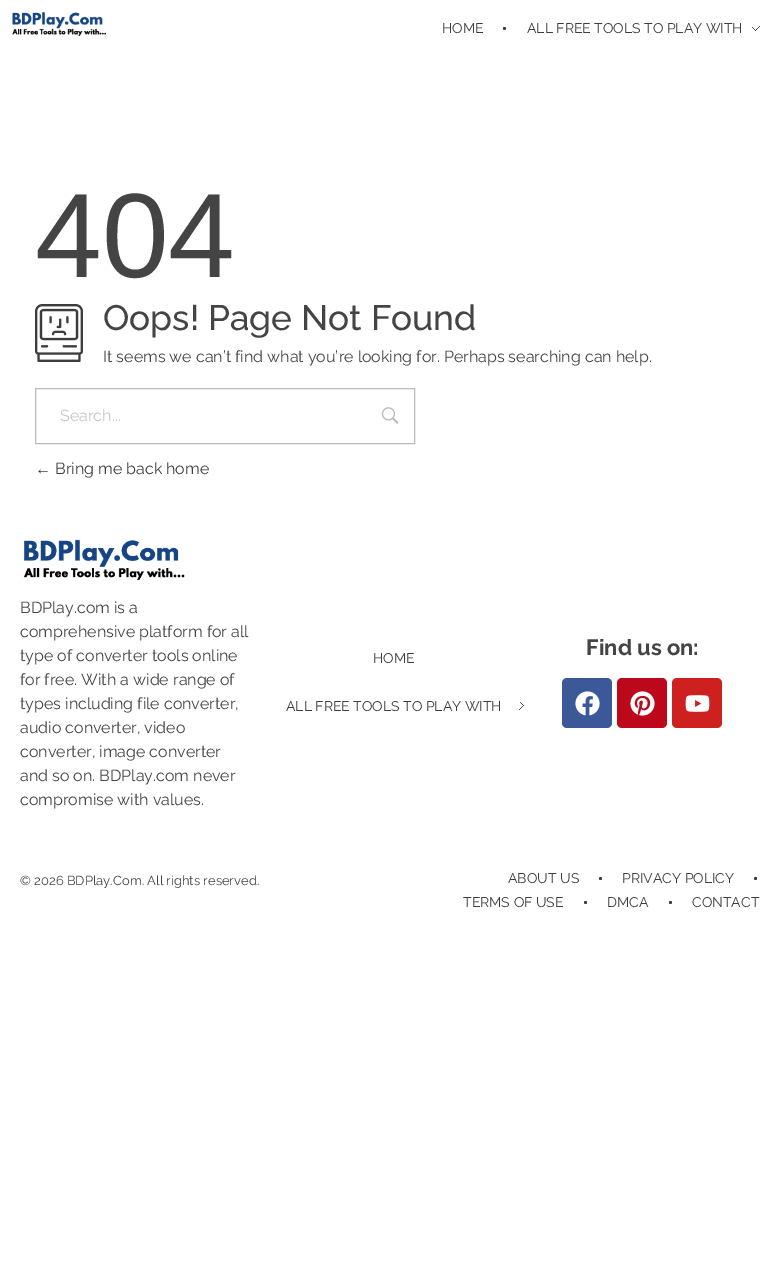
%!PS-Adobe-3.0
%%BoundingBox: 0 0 779 1262
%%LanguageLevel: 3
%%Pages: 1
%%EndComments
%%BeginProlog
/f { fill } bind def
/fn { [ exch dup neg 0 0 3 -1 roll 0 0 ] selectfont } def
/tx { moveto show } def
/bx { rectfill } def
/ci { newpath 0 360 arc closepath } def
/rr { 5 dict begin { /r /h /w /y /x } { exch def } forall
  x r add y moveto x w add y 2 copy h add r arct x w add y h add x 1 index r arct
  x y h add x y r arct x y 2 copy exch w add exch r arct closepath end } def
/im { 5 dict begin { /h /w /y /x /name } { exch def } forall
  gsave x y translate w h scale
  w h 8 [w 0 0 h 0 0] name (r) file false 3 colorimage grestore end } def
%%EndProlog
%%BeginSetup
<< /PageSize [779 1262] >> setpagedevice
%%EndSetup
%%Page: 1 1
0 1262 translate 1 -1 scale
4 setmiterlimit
1 setgray
0 0 779 1262 bx
(image0.raw) 12 12 94 24 im
/Raleway-Regular 14 fn
0.239 setgray
(HOME) 442 33 tx
504.5 28.5 1.5 ci f
(ALL FREE TOOLS TO PLAY WITH) 527 33 tx
(image1.raw) 752 26 8 5 im
/LiberationSans-Regular 120 fn
0.267 setgray
(404) 35 277 tx
(image2.raw) 35 304 48 58 im
/Raleway-Medium 35.25 fn
(Oops! Page Not Found) 103 330 tx
/Raleway-Regular 16 fn
(It seems we can’t find what you’re looking for. Perhaps searching can help.) 103 362 tx
0.733 setgray
35.5 388.5 379 55 rectstroke
0.773 setgray
(Search...) 60 421 tx
(image3.raw) 381 407 18 17 im
/LiberationSans-Regular 16 fn
0.239 setgray
(←) 35 474 tx
/Raleway-Regular 16 fn
(Bring me back home) 55 474 tx
(image4.raw) 23 539 162 41 im
0.267 setgray
(BDPlay.com is a) 20 613 tx
(comprehensive platform for all) 20 637 tx
(type of converter tools online) 20 661 tx
(for free. With a wide range of) 20 685 tx
(types including file converter,) 20 709 tx
(audio converter, video) 20 733 tx
(converter, image converter) 20 757 tx
(and so on. BDPlay.com never) 20 781 tx
(compromise with values.) 20 805 tx
/Raleway-Bold 22 fn
(Find us on:) 586 655 tx
0.231 0.349 0.596 setrgbcolor
562 678 50 50 5 rr f
(image5.raw) 575 691 25 25 im
0.741 0.031 0.11 setrgbcolor
617 678 50 50 5 rr f
(image6.raw) 630 691 25 25 im
0.804 0.125 0.122 setrgbcolor
672 678 50 50 5 rr f
(image7.raw) 685 695 25 17 im
/Raleway-Regular 14 fn
0.239 setgray
(HOME) 373 663 tx
(ALL FREE TOOLS TO PLAY WITH) 286 711 tx
(image8.raw) 519 702 5 8 im
/Raleway-Regular 13 fn
0.267 setgray
(© 2026 BDPlay.Com. All rights reserved.) 20 885 tx
/Raleway-Regular 14 fn
0.239 setgray
(ABOUT US) 508 883 tx
600.5 878.5 1.5 ci f
(PRIVACY POLICY) 622 883 tx
755.5 878.5 1.5 ci f
(TERMS OF USE) 463 907 tx
585.5 902.5 1.5 ci f
(DMCA) 607 907 tx
670.5 902.5 1.5 ci f
(CONTACT) 692 907 tx
showpage
%%EOF
